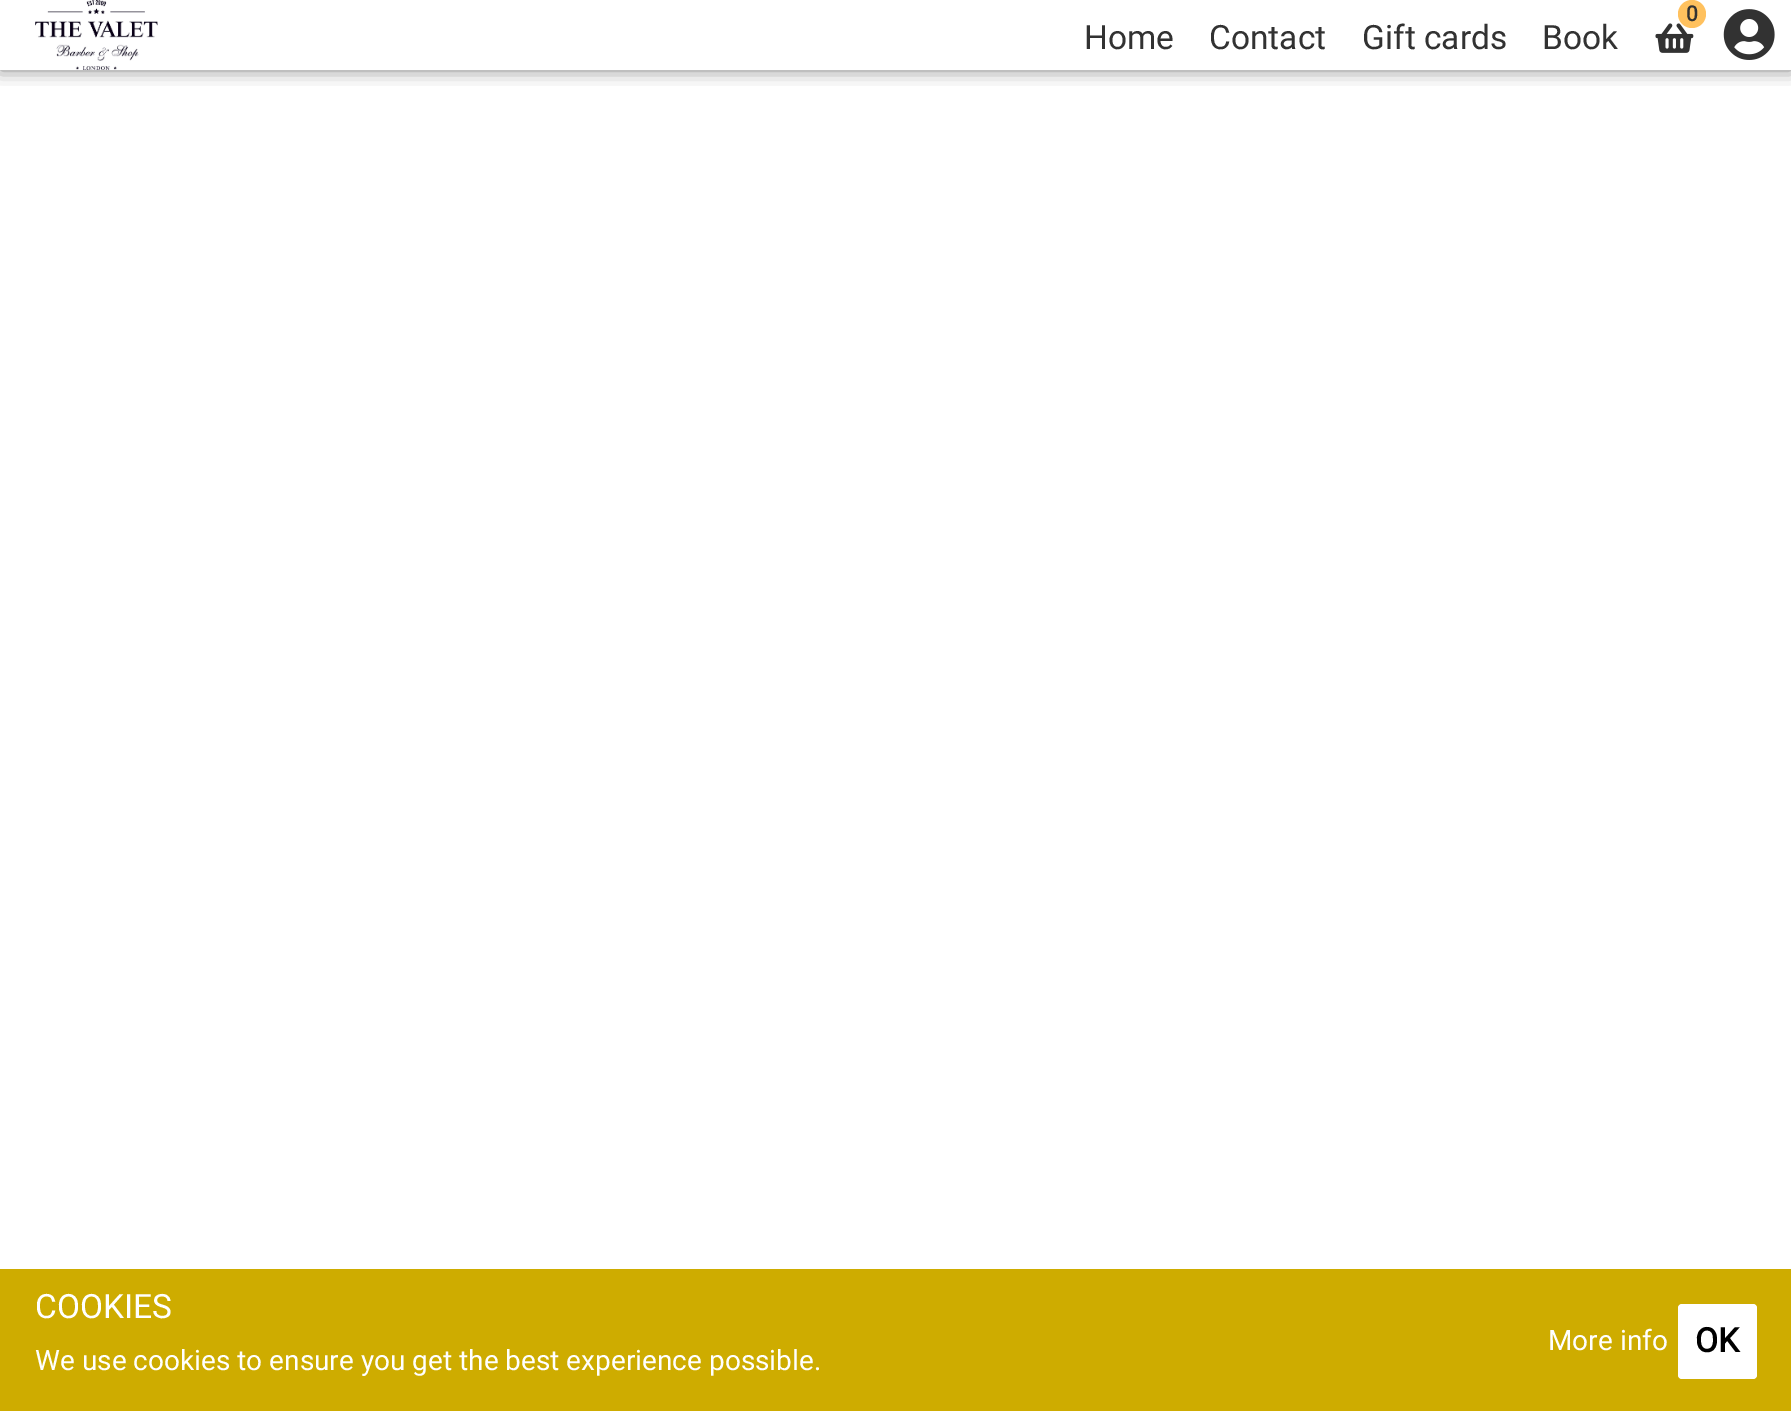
%!PS-Adobe-3.0
%%BoundingBox: 0 0 1791 1411
%%LanguageLevel: 3
%%Pages: 1
%%EndComments
%%BeginProlog
/f { fill } bind def
/q { gsave } bind def
/Q { grestore } bind def
/fn { [ exch dup neg 0 0 3 -1 roll 0 0 ] selectfont } def
/tx { moveto show } def
/bx { rectfill } def
/al { dup .setfillconstantalpha .setstrokeconstantalpha } def
/ci { newpath 0 360 arc closepath } def
/rr { 5 dict begin { /r /h /w /y /x } { exch def } forall
  x r add y moveto x w add y 2 copy h add r arct x w add y h add x 1 index r arct
  x y h add x y r arct x y 2 copy exch w add exch r arct closepath end } def
/sh { 12 dict begin { /a /b /q /h /w /y /x } { exch def } forall gsave /was 0 def
  9 -2 -9 { dup b mul 4 div /e exch def 1 sub .425 mul 2.718 exch exp 1 add a .99 .min exch div /now exch def
    1 1 now sub 1 was sub div sub al /was now def
    w h .min e 2 mul add 0 gt { x e sub y e sub w e 2 mul add h e 2 mul add
      q e add b .6 mul add w h .min 2 div e add .min 0 .max rr fill } if } for grestore end } def
/im { 5 dict begin { /h /w /y /x /name } { exch def } forall
  gsave x y translate w h scale
  w h 8 [w 0 0 h 0 0] name (r) file false 3 colorimage grestore end } def
%%EndProlog
%%BeginSetup
<< /PageSize [1791 1411] /PageUsesTransparency true >> setpagedevice
%%EndSetup
%%Page: 1 1
0 .pushpdf14devicefilter
0 1411 translate 1 -1 scale
4 setmiterlimit
1 setgray
0 0 1791 1411 bx
q
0 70 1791 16 rectclip
0 setgray
0 0 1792 70 0 9 0.5 sh
Q
(image0.raw) 35 0 123 70 im
/Roboto-Regular 33.5 fn
0.196 setgray
(Home) 1084 49 tx
(Contact) 1209 49 tx
(Gift cards) 1362 49 tx
(Book) 1542 49 tx
(image1.raw) 1655 23 39 30 im
1 0.757 0.369 setrgbcolor
1692 14 14 ci f
/Roboto-Bold 21 fn
0.196 setgray
(0) 1686 21 tx
(image2.raw) 1723 9 52 51 im
0.808 0.675 0 setrgbcolor
0 1269 1791 142 bx
/Roboto-Regular 33.5 fn
1 setgray
(COOKIES) 35 1318 tx
/Roboto-Regular 28 fn
(We use cookies to ensure you get the best experience possible.) 35 1370 tx
(More info) 1548 1350 tx
1678 1304 79 75 4 rr f
/Roboto-Bold 33.5 fn
0 setgray
(OK) 1695 1352 tx
.poppdf14devicefilter showpage
%%EOF
